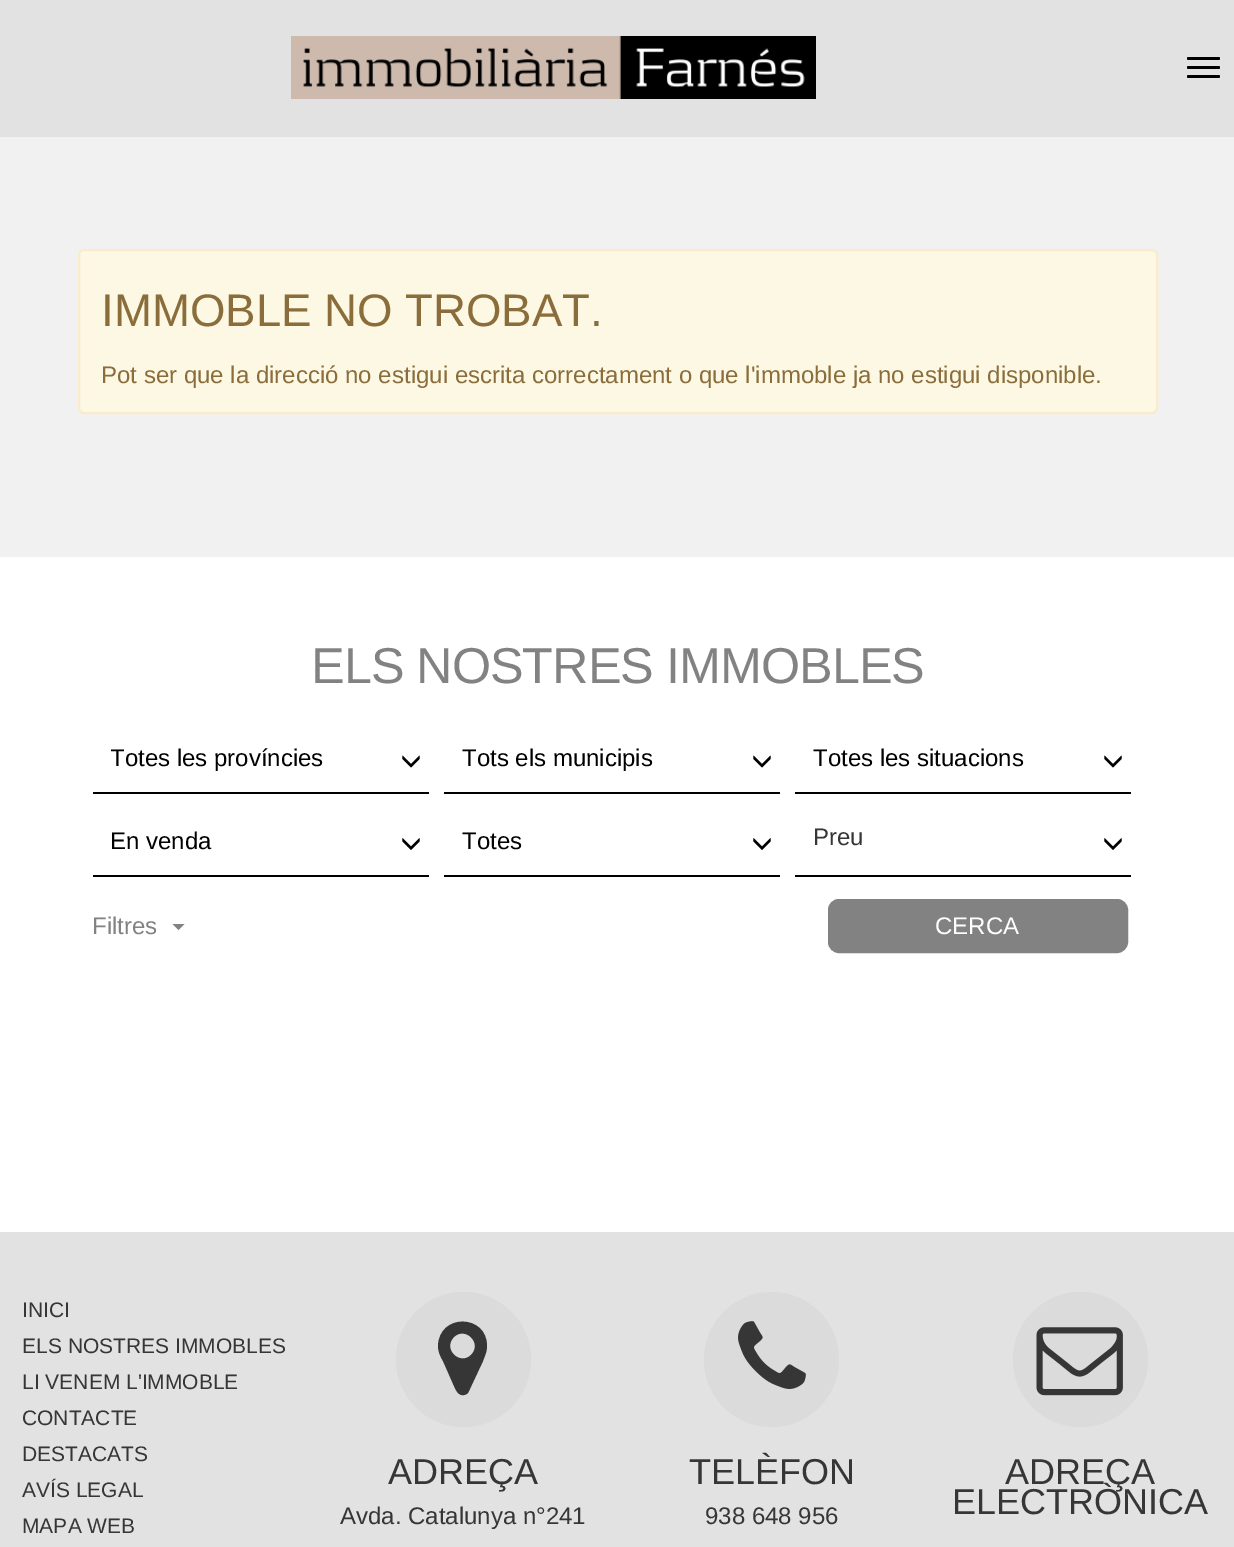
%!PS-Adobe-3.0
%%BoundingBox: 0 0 1234 1547
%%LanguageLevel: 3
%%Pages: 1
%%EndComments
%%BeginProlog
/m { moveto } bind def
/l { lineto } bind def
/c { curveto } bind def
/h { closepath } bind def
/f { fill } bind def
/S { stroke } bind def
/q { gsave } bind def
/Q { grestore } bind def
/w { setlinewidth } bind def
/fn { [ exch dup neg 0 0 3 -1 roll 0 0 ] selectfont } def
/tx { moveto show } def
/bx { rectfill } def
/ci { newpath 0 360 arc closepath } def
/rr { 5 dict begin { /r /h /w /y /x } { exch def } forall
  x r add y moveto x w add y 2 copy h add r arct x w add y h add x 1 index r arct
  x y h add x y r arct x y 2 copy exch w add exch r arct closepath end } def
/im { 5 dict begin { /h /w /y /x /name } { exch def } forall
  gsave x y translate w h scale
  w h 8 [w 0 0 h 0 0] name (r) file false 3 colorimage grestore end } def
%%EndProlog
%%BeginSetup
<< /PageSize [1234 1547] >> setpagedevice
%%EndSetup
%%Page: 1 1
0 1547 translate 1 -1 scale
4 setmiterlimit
1 setgray
0 0 1234 1547 bx
0.886 setgray
0 0 1234 137 bx
(image0.raw) 291 36 525 63 im
0 setgray
1187 57 33 3 1.5 rr f
1187 66 33 3 1.5 rr f
1187 75 33 3 1.5 rr f
0.945 setgray
0 137 1234 420 bx
0.988 0.973 0.89 setrgbcolor
79 250 1078 163 5 rr q f Q
0.98 0.922 0.8 setrgbcolor
2 w
S
/LiberationSans-Regular 45.6 fn
0.541 0.427 0.231 setrgbcolor
(IMMOBLE NO TROBAT.) 101 326 tx
/LiberationSans-Regular 24 fn
(Pot ser que la direcció no estigui escrita correctament o que l'immoble ja no estigui disponible.) 101 383 tx
/LiberationSans-Regular 50.4 fn
0.51 setgray
311 683 m -1 0 (ELS NOSTRES IMMOBLES) ashow
0 setgray
93 792 336 2 bx
q
111 743 279 34 rectclip
/LiberationSans-Regular 24 fn
(Totes les províncies) 110 766 tx
Q
(image1.raw) 402 755 18 13 im
444 792 336 2 bx
/LiberationSans-Regular 24 fn
(Tots els municipis) 462 766 tx
(image1.raw) 753 755 18 13 im
795 792 336 2 bx
(Totes les situacions) 813 766 tx
(image1.raw) 1104 755 18 13 im
93 875 336 2 bx
(En venda) 110 849 tx
(image2.raw) 402 838 18 12 im
444 875 336 2 bx
(Totes) 462 849 tx
(image2.raw) 753 838 18 12 im
795 875 336 2 bx
0.212 setgray
(Preu) 813 845 tx
(image2.raw) 1104 838 18 12 im
0.51 setgray
(Filtres) 92 934 tx
172.5 924 m 184.5 924 l 178.5 930 l h f
829 900 298 52 10 rr q f Q
S
1 setgray
(CERCA) 935 934 tx
0.886 setgray
0 1232 1234 315 bx
/LiberationSans-Regular 21 fn
0.212 setgray
(INICI) 22 1317 tx
(ELS NOSTRES IMMOBLES) 22 1353 tx
(LI VENEM L'IMMOBLE) 22 1389 tx
(CONTACTE) 22 1425 tx
(DESTACATS) 22 1461 tx
(AVÍS LEGAL) 22 1497 tx
(MAPA WEB) 22 1533 tx
0.859 setgray
463.5 1359.5 67.5 ci f
0.212 setgray
471 1355 m 483 1343 465 1326 454 1337 c 442 1349 460 1366 471 1355 c h 487 1346 m 487 1352 485 1355 483 1361 c 468 1393 l 467 1394 465 1395 464 1395 c 458 1396 456 1390 454 1386 c 443 1361 l 440 1356 438 1351 438 1346 c 439 1313 487 1314 487 1346 c h f
/LiberationSans-Regular 36 fn
(ADREÇA) 388 1484 tx
/LiberationSans-Regular 24 fn
(Avda. Catalunya n°241) 340 1524 tx
0.859 setgray
771.5 1359.5 67.5 ci f
(image3.raw) 738 1321 68 68 im
/LiberationSans-Regular 36 fn
0.212 setgray
(TELÈFON) 689 1484 tx
/LiberationSans-Regular 24 fn
(938 648 956) 705 1524 tx
0.859 setgray
1080.5 1359.5 67.5 ci f
(image4.raw) 1036 1327 87 69 im
/LiberationSans-Regular 36 fn
0.212 setgray
(ADREÇA) 1005 1484 tx
(ELECTRÒNICA) 952 1514 tx
showpage
%%EOF
